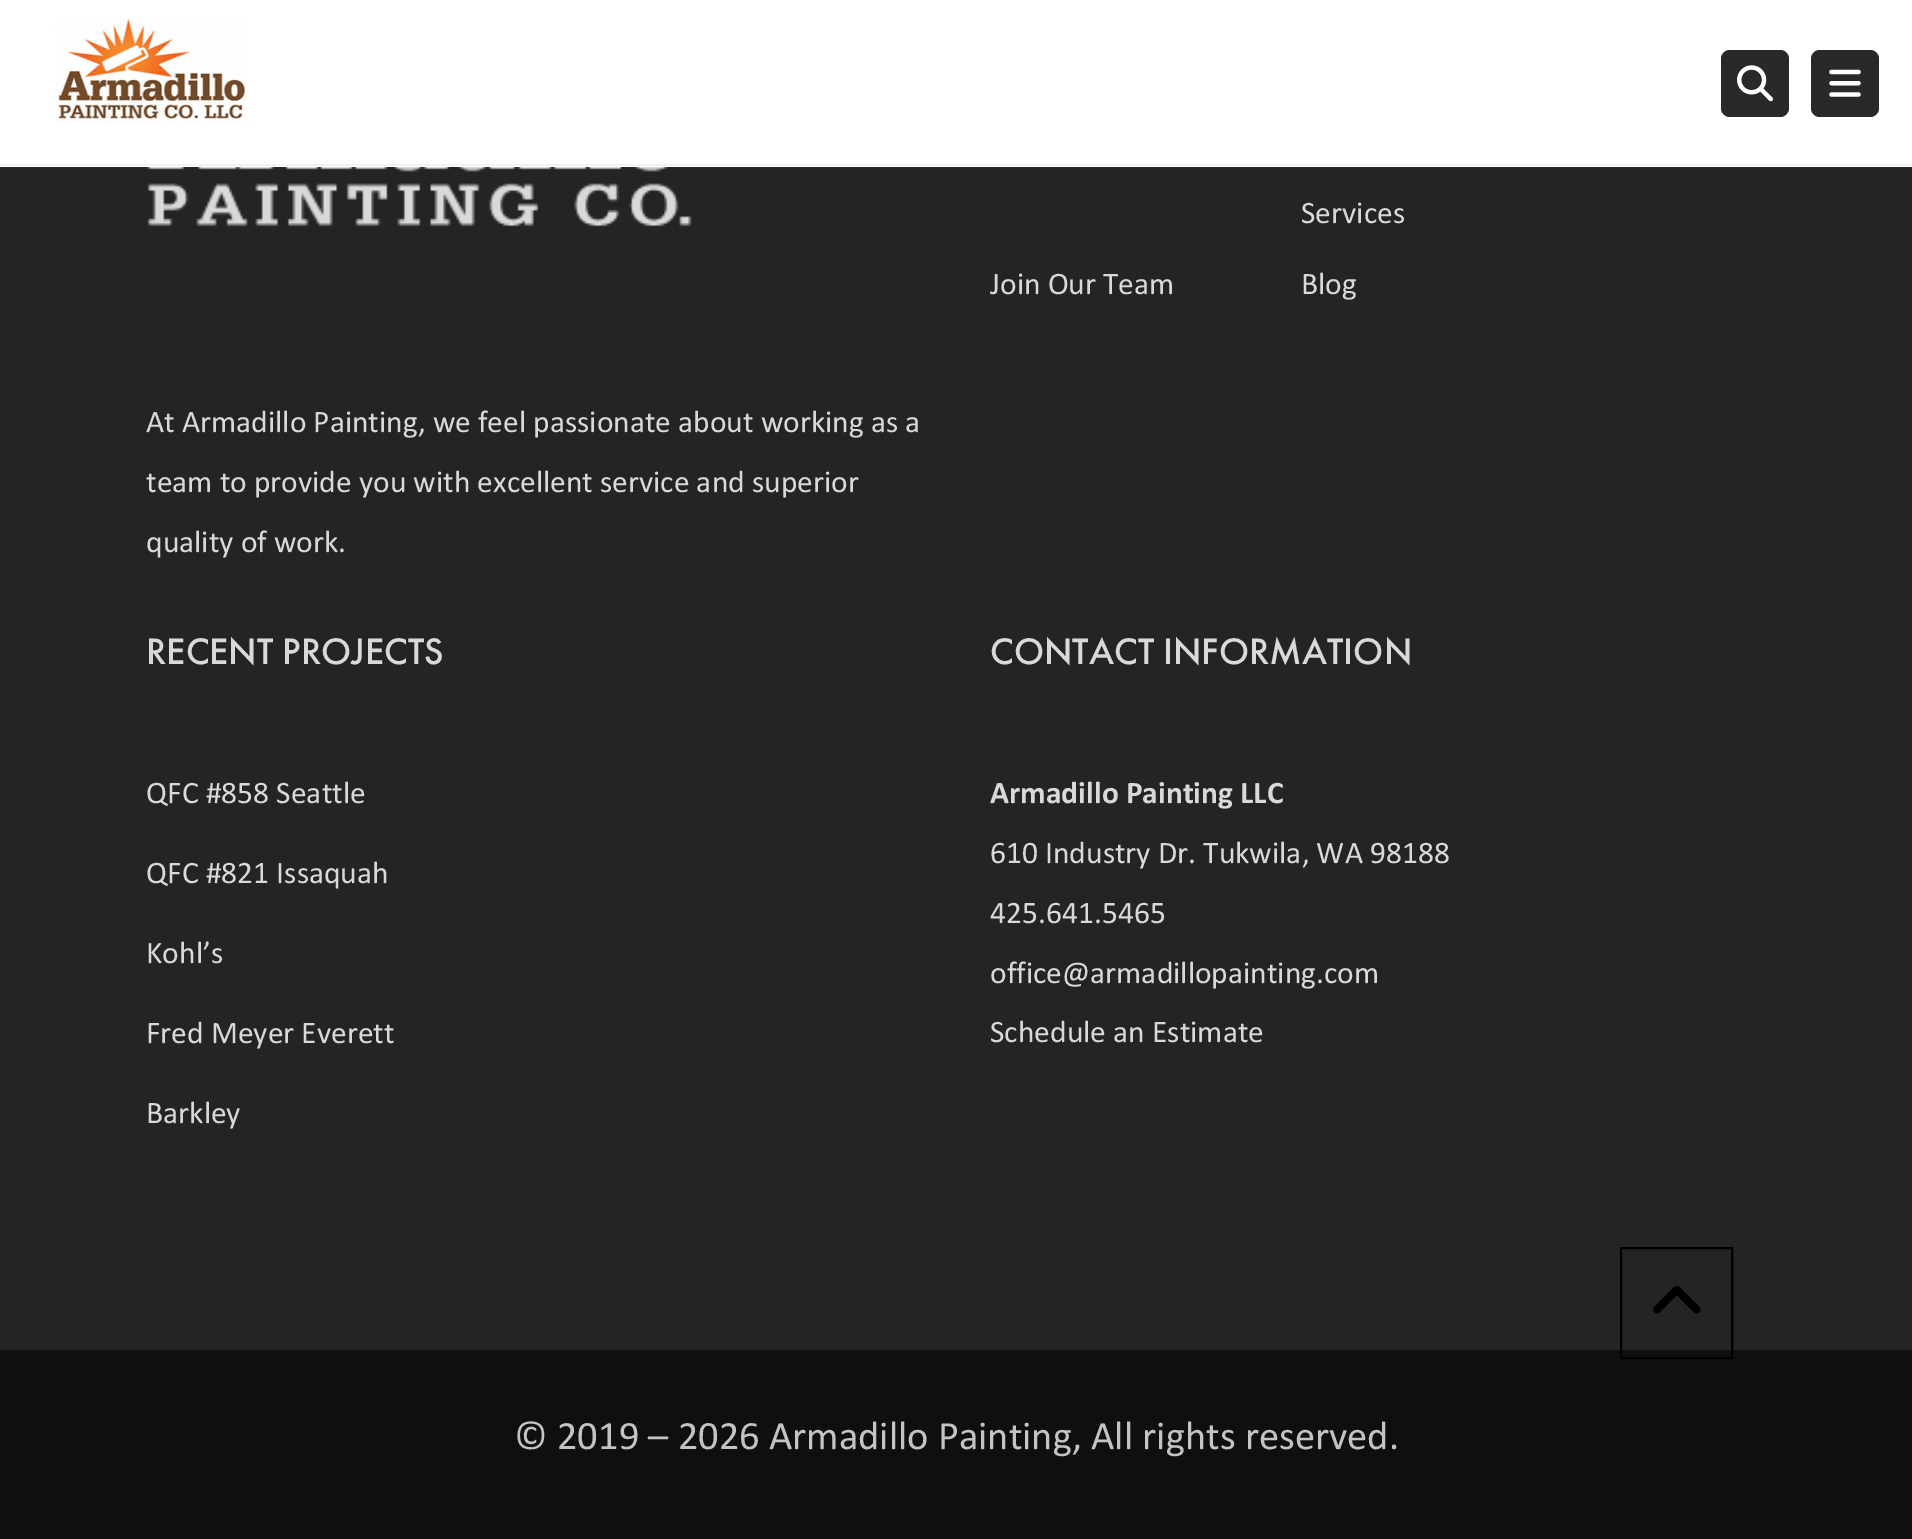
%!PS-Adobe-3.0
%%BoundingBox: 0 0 1912 1539
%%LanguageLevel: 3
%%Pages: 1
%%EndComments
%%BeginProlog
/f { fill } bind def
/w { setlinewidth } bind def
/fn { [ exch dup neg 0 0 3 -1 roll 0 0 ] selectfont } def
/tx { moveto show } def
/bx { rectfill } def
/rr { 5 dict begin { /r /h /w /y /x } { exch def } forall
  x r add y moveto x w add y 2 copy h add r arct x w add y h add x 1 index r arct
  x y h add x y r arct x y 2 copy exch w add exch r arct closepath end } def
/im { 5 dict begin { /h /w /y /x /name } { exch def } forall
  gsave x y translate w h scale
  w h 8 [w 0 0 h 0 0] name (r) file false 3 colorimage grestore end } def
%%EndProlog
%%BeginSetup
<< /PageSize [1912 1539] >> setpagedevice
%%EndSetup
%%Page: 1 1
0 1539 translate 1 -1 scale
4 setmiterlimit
0.141 setgray
0 0 1912 1539 bx
1 setgray
0 0 1912 167 bx
0.949 setgray
0 164 1912 2 bx
(image0.raw) 55 18 192 105 im
0.161 setgray
1721 50 68 67 9 rr f
(image1.raw) 1737 65 36 37 im
1811 50 68 67 9 rr f
(image2.raw) 1829 69 32 28 im
/Calibri-Regular 31.5 fn
0.851 setgray
(Services) 1301 223 tx
(Join Our Team) 990 294 tx
(Blog) 1301 294 tx
(image3.raw) 147 167 545 60 im
(At Armadillo Painting, we feel passionate about working as a) 146 432 tx
(team to provide you with excellent service and superior) 146 492 tx
(quality of work.) 146 552 tx
/FuturaPT-Medium 38.25 fn
(RECENT PROJECTS) 146 664 tx
/Calibri-Regular 31.5 fn
(QFC #858 Seattle) 146 803 tx
(QFC #821 Issaquah) 146 883 tx
(Kohl’s) 146 963 tx
(Fred Meyer Everett) 146 1043 tx
(Barkley) 146 1123 tx
/FuturaPT-Medium 38.25 fn
(CONTACT INFORMATION) 990 664 tx
/Calibri-Bold 31.5 fn
(Armadillo Painting LLC) 990 803 tx
/Calibri-Regular 31.5 fn
(610 Industry Dr. Tukwila, WA 98188) 990 863 tx
(425.641.5465) 990 923 tx
(office@armadillopainting.com) 990 983 tx
(Schedule an Estimate) 990 1042 tx
0.059 setgray
0 1350 1912 189 bx
/Calibri-Regular 40.5 fn
0.769 setgray
(© 2019 – 2026 Armadillo Painting, All rights reserved.) 514 1449 tx
0 setgray
2 w
1621 1248 111 110 rectstroke
(image4.raw) 1653 1286 48 28 im
showpage
%%EOF
